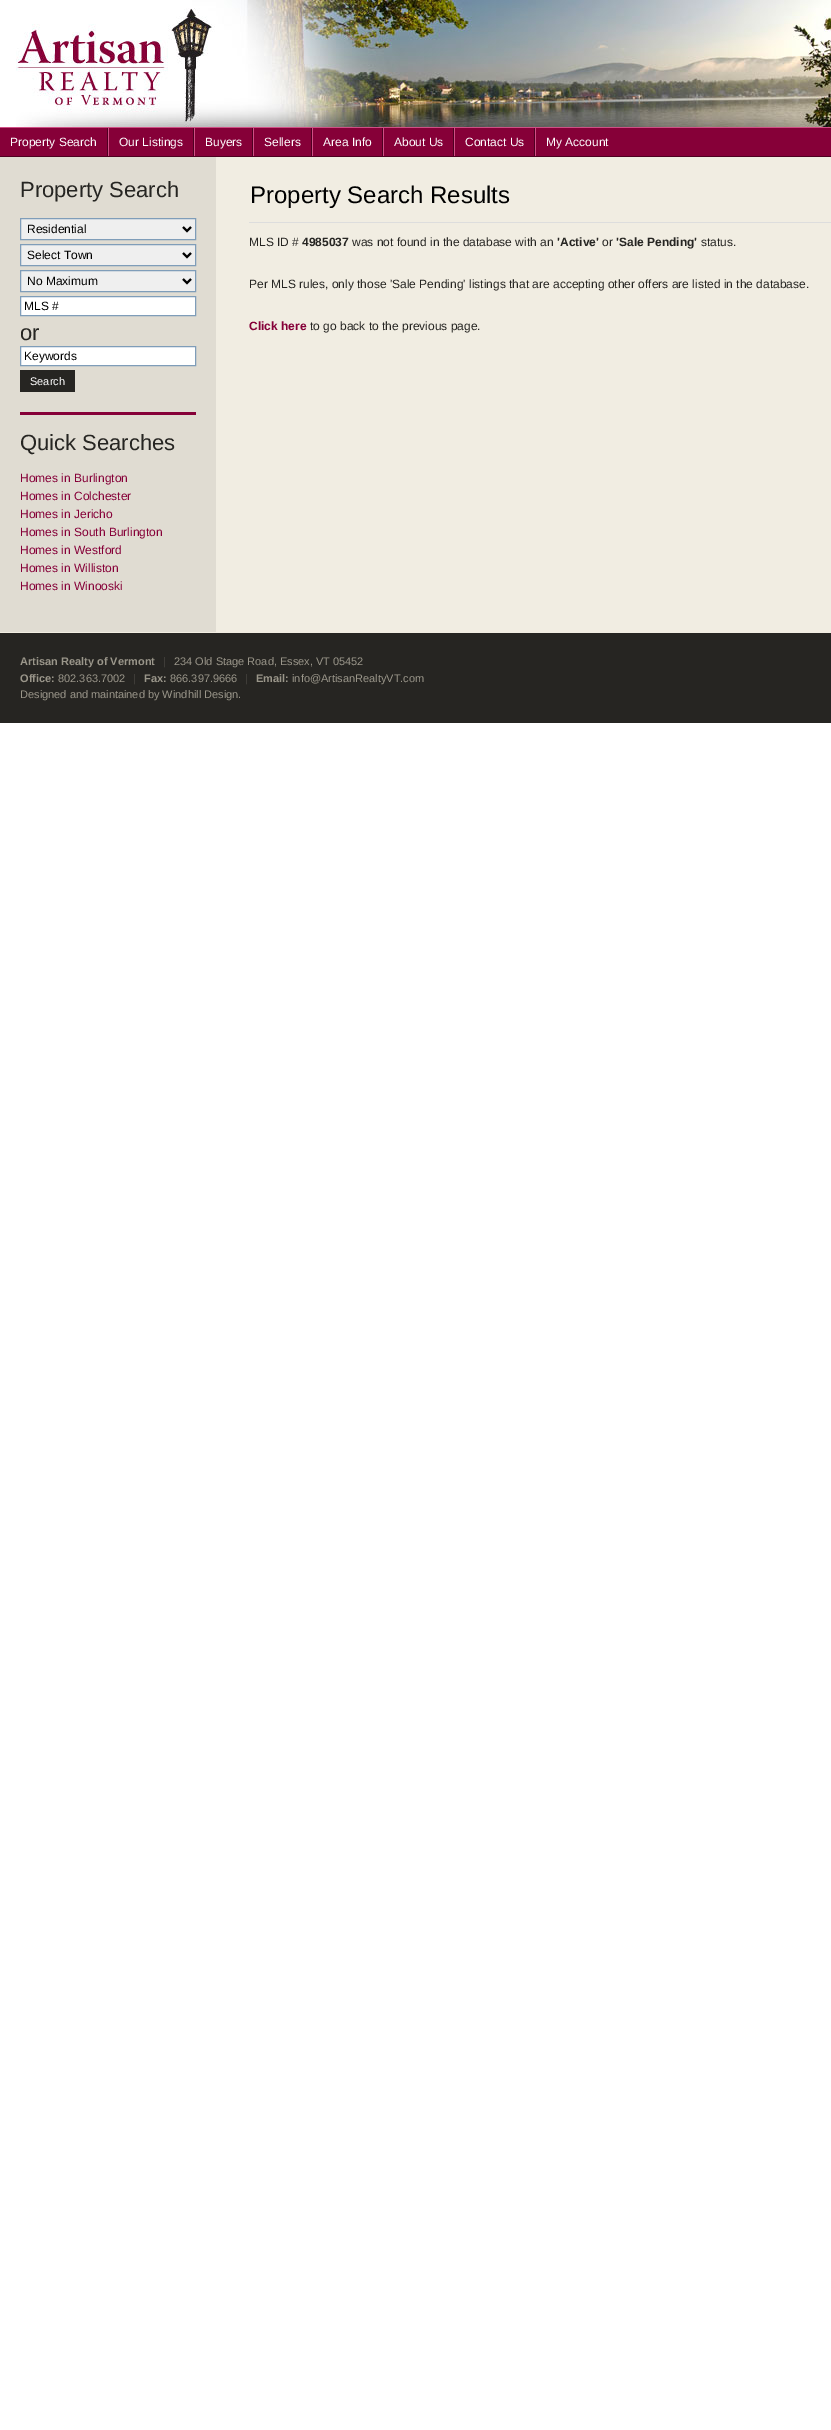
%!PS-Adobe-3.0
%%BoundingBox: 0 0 831 2430
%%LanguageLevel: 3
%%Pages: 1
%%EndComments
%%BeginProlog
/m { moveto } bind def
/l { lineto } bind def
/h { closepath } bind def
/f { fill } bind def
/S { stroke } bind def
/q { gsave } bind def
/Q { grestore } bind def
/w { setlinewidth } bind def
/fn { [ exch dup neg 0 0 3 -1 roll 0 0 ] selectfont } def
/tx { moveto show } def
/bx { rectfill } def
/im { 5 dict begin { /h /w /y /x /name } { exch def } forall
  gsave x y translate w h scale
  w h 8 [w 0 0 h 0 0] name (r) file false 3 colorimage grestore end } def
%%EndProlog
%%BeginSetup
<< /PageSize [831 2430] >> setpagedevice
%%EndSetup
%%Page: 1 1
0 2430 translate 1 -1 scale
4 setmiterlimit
1 setgray
0 0 831 2430 bx
(image0.raw) 16 0 815 127 im
0.525 0 0.22 setrgbcolor
0 128 831 28 bx
0.812 0.314 0.522 setrgbcolor
0 127 831 1 bx
0.306 0 0.129 setrgbcolor
0 156 831 1 bx
107 128 1 28 bx
/LiberationSans-Regular 12 fn
1 setgray
(Property Search) 10 146 tx
0.306 0 0.129 setrgbcolor
193 128 1 28 bx
0.812 0.314 0.522 setrgbcolor
108 128 1 28 bx
1 setgray
(Our Listings) 119 146 tx
0.306 0 0.129 setrgbcolor
252 128 1 28 bx
0.812 0.314 0.522 setrgbcolor
194 128 1 28 bx
1 setgray
(Buyers) 205 146 tx
0.306 0 0.129 setrgbcolor
311 128 1 28 bx
0.812 0.314 0.522 setrgbcolor
253 128 1 28 bx
1 setgray
(Sellers) 264 146 tx
0.306 0 0.129 setrgbcolor
382 128 1 28 bx
0.812 0.314 0.522 setrgbcolor
312 128 1 28 bx
1 setgray
(Area Info) 323 146 tx
0.306 0 0.129 setrgbcolor
453 128 1 28 bx
0.812 0.314 0.522 setrgbcolor
383 128 1 28 bx
1 setgray
(About Us) 394 146 tx
0.306 0 0.129 setrgbcolor
534 128 1 28 bx
0.812 0.314 0.522 setrgbcolor
454 128 1 28 bx
1 setgray
(Contact Us) 465 146 tx
0.812 0.314 0.522 setrgbcolor
535 128 1 28 bx
1 setgray
(My Account) 546 146 tx
0.945 0.929 0.886 setrgbcolor
0 157 831 476 bx
0.878 0.863 0.824 setrgbcolor
0 157 216 475 bx
/LiberationSans-Regular 22 fn
0.149 0.145 0.133 setrgbcolor
(Property Search) 20 197 tx
0.937 setgray
20.5 218.5 m 195.5 218.5 l 195.5 239.5 l 20.5 239.5 l h q f Q
0.498 0.616 0.725 setrgbcolor
S
0 setgray
2 w
183 227 m 187 231 l 191 227 l S
/LiberationSans-Regular 12 fn
(Residential) 27 233 tx
0.937 setgray
20.5 244.5 m 195.5 244.5 l 195.5 265.5 l 20.5 265.5 l h q f Q
0.498 0.616 0.725 setrgbcolor
1 w
S
0 setgray
2 w
183 253 m 187 257 l 191 253 l S
(Select Town) 27 259 tx
0.937 setgray
20.5 270.5 m 195.5 270.5 l 195.5 291.5 l 20.5 291.5 l h q f Q
0.498 0.616 0.725 setrgbcolor
1 w
S
0 setgray
2 w
183 279 m 187 283 l 191 279 l S
(No Maximum) 27 285 tx
1 setgray
20.5 296.5 m 195.5 296.5 l 195.5 315.5 l 20.5 315.5 l h q f Q
0.498 0.616 0.725 setrgbcolor
1 w
S
0 setgray
(MLS #) 24 310 tx
/LiberationSans-Regular 22 fn
0.149 0.145 0.133 setrgbcolor
(or) 20 340 tx
1 setgray
20.5 346.5 m 195.5 346.5 l 195.5 365.5 l 20.5 365.5 l h q f Q
0.498 0.616 0.725 setrgbcolor
S
/LiberationSans-Regular 12 fn
0 setgray
(Keywords) 24 360 tx
0.149 0.145 0.133 setrgbcolor
20 370 55 22 bx
/LiberationSans-Regular 11 fn
1 setgray
(Search) 30 385 tx
0.525 0 0.22 setrgbcolor
20 412 176 3 bx
/LiberationSans-Regular 22 fn
0.149 0.145 0.133 setrgbcolor
(Quick Searches) 20 450 tx
/LiberationSans-Regular 12 fn
0.525 0 0.22 setrgbcolor
(Homes in Burlington) 20 482 tx
(Homes in Colchester) 20 500 tx
(Homes in Jericho) 20 518 tx
(Homes in South Burlington) 20 536 tx
(Homes in Westford) 20 554 tx
(Homes in Williston) 20 572 tx
(Homes in Winooski) 20 590 tx
/LiberationSans-Regular 24 fn
0 setgray
(Property Search Results) 250 203 tx
0.867 setgray
249 222 582 1 bx
/LiberationSans-Regular 12 fn
0.149 0.145 0.133 setrgbcolor
(MLS ID #) 249 246 tx
/LiberationSans-Bold 12 fn
(4985037) 302 246 tx
/LiberationSans-Regular 12 fn
(was not found in the database with an) 352 246 tx
/LiberationSans-Bold 12 fn
('Active') 557 246 tx
/LiberationSans-Regular 12 fn
(or) 602 246 tx
/LiberationSans-Bold 12 fn
('Sale Pending') 616 246 tx
/LiberationSans-Regular 12 fn
(status.) 701 246 tx
(Per MLS rules, only those 'Sale Pending' listings that are accepting other offers are listed in the database.) 249 288 tx
/LiberationSans-Bold 12 fn
0.525 0 0.22 setrgbcolor
(Click here) 249 330 tx
/LiberationSans-Regular 12 fn
0.149 0.145 0.133 setrgbcolor
(to go back to the previous page.) 310 330 tx
0 633 831 90 bx
/LiberationSans-Bold 11 fn
0.604 0.588 0.541 setrgbcolor
(Artisan Realty of Vermont) 20 665 tx
/LiberationSans-Regular 11 fn
0.278 0.271 0.251 setrgbcolor
(|) 163 665 tx
0.604 0.588 0.541 setrgbcolor
(234 Old Stage Road, Essex, VT 05452) 174 665 tx
/LiberationSans-Bold 11 fn
(Office:) 20 682 tx
/LiberationSans-Regular 11 fn
(802.363.7002) 58 682 tx
0.278 0.271 0.251 setrgbcolor
(|) 133 682 tx
/LiberationSans-Bold 11 fn
0.604 0.588 0.541 setrgbcolor
(Fax:) 144 682 tx
/LiberationSans-Regular 11 fn
(866.397.9666) 170 682 tx
0.278 0.271 0.251 setrgbcolor
(|) 245 682 tx
/LiberationSans-Bold 11 fn
0.604 0.588 0.541 setrgbcolor
(Email:) 256 682 tx
/LiberationSans-Regular 11 fn
(info@ArtisanRealtyVT.com) 292 682 tx
(Designed and maintained by Windhill Design.) 20 698 tx
showpage
%%EOF
